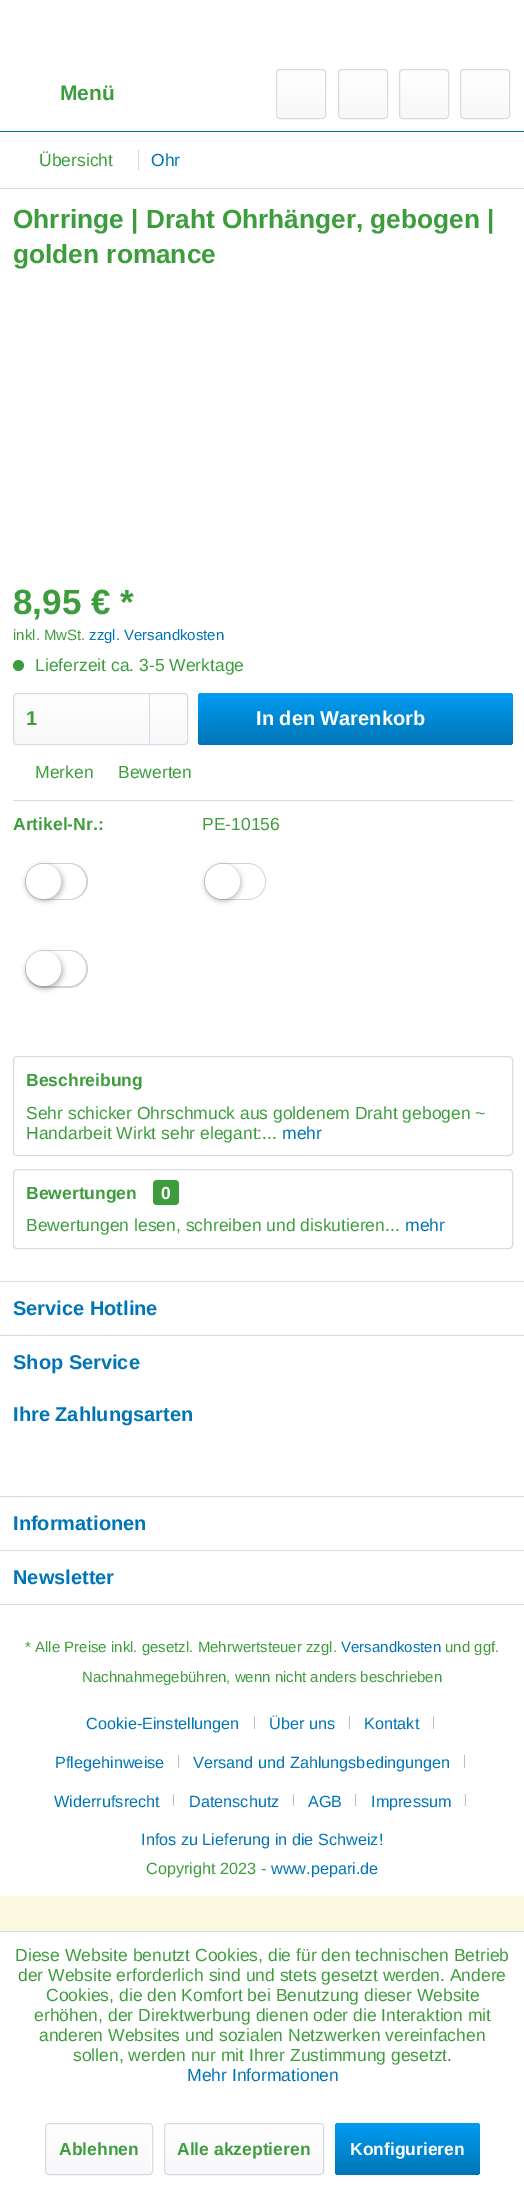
%!PS-Adobe-3.0
%%BoundingBox: 0 0 524 2187
%%LanguageLevel: 3
%%Pages: 1
%%EndComments
%%BeginProlog
/f { fill } bind def
/S { stroke } bind def
/q { gsave } bind def
/Q { grestore } bind def
/fn { [ exch dup neg 0 0 3 -1 roll 0 0 ] selectfont } def
/tx { moveto show } def
/bx { rectfill } def
/al { dup .setfillconstantalpha .setstrokeconstantalpha } def
/ci { newpath 0 360 arc closepath } def
/rr { 5 dict begin { /r /h /w /y /x } { exch def } forall
  x r add y moveto x w add y 2 copy h add r arct x w add y h add x 1 index r arct
  x y h add x y r arct x y 2 copy exch w add exch r arct closepath end } def
/sh { 12 dict begin { /a /b /q /h /w /y /x } { exch def } forall gsave /was 0 def
  9 -2 -9 { dup b mul 4 div /e exch def 1 sub .425 mul 2.718 exch exp 1 add a .99 .min exch div /now exch def
    1 1 now sub 1 was sub div sub al /was now def
    w h .min e 2 mul add 0 gt { x e sub y e sub w e 2 mul add h e 2 mul add
      q e add b .6 mul add w h .min 2 div e add .min 0 .max rr fill } if } for grestore end } def
%%EndProlog
%%BeginSetup
<< /PageSize [524 2187] /PageUsesTransparency true >> setpagedevice
%%EndSetup
%%Page: 1 1
0 .pushpdf14devicefilter
0 2187 translate 1 -1 scale
4 setmiterlimit
0.98 0.976 0.878 setrgbcolor
0 0 524 2187 bx
1 setgray
0 0 524 1281 bx
0 0.459 0.714 setrgbcolor
0 131 524 1 bx
/LiberationSans-Bold 21 fn
0.239 0.616 0.239 setrgbcolor
(Menü) 60 100 tx
q 278 70 47 48 2.5 rr clip newpath
<< /ShadingType 2 /ColorSpace /DeviceRGB /Coords [301 70 301 118] /Extend [true true] /Function << /FunctionType 2 /Domain [0 1] /C0 [1 1 1] /C1 [0.973 0.973 0.98] /N 1 >> >> shfill Q
0.855 0.855 0.898 setrgbcolor
276.5 69.5 49 49 3.5 rr S
q 339 70 47 48 2.5 rr clip newpath
<< /ShadingType 2 /ColorSpace /DeviceRGB /Coords [363 70 363 118] /Extend [true true] /Function << /FunctionType 2 /Domain [0 1] /C0 [1 1 1] /C1 [0.973 0.973 0.98] /N 1 >> >> shfill Q
338.5 69.5 49 49 3.5 rr S
q 400 70 48 48 2.5 rr clip newpath
<< /ShadingType 2 /ColorSpace /DeviceRGB /Coords [424 70 424 118] /Extend [true true] /Function << /FunctionType 2 /Domain [0 1] /C0 [1 1 1] /C1 [0.973 0.973 0.98] /N 1 >> >> shfill Q
399.5 69.5 49 49 3.5 rr S
q 461 70 48 48 2.5 rr clip newpath
<< /ShadingType 2 /ColorSpace /DeviceRGB /Coords [485 70 485 118] /Extend [true true] /Function << /FunctionType 2 /Domain [0 1] /C0 [1 1 1] /C1 [0.973 0.973 0.98] /N 1 >> >> shfill Q
460.5 69.5 49 49 3.5 rr S
0 188 524 1 bx
/LiberationSans-Regular 17.5 fn
0.239 0.616 0.239 setrgbcolor
(Übersicht) 39 166 tx
0.855 0.855 0.898 setrgbcolor
138 150 1 20 bx
0 0.459 0.714 setrgbcolor
(Ohr) 151 166 tx
/LiberationSans-Bold 26.25 fn
0.239 0.616 0.239 setrgbcolor
(Ohrringe | Draht Ohrhänger, gebogen |) 13 228 tx
(golden romance) 13 263 tx
/LiberationSans-Bold 35 fn
(8,95 € *) 13 614 tx
/LiberationSans-Regular 15 fn
(inkl. MwSt.) 13 640 tx
0 0.459 0.714 setrgbcolor
(zzgl. Versandkosten) 89 640 tx
0.239 0.616 0.239 setrgbcolor
18.5 665.5 5.5 ci f
/LiberationSans-Regular 17.5 fn
(Lieferzeit ca. 3-5 Werktage) 35 671 tx
q 14 694 172 50 2.5 rr clip newpath
<< /ShadingType 2 /ColorSpace /DeviceRGB /Coords [100 694 100 744] /Extend [true true] /Function << /FunctionType 2 /Domain [0 1] /C0 [1 1 1] /C1 [0.973 0.973 0.98] /N 1 >> >> shfill Q
0.855 0.855 0.898 setrgbcolor
13.5 693.5 174 51 3.5 rr S
/LiberationSans-Bold 20 fn
0.239 0.616 0.239 setrgbcolor
(1) 26 725 tx
0.855 0.855 0.898 setrgbcolor
149 694 1 50 bx
q 198 693 315 52 4 rr clip newpath
<< /ShadingType 2 /ColorSpace /DeviceRGB /Coords [355 693 355 745] /Extend [true true] /Function << /FunctionType 2 /Domain [0 1] /C0 [0 0.612 0.953] /C1 [0 0.459 0.714] /N 1 >> >> shfill Q
1 setgray
(In den Warenkorb) 256 725 tx
0.855 0.855 0.898 setrgbcolor
13 800 500 1 bx
/LiberationSans-Regular 17.5 fn
0.239 0.616 0.239 setrgbcolor
(Merken) 35 778 tx
(Bewerten) 118 778 tx
/LiberationSans-Bold 17.5 fn
(Artikel-Nr.:) 13 830 tx
/LiberationSans-Regular 17.5 fn
(PE-10156) 202 830 tx
0.843 0.824 0.796 setrgbcolor
25 863 63 37 18.5 rr f
1 setgray
26 864 60 35 17.5 rr f
0 setgray
26 865 37 36 18 2.5 0.25 sh
1 setgray
43.5 881.5 17.5 ci f
0.843 0.824 0.796 setrgbcolor
204 863 62 37 18.5 rr f
1 setgray
205 864 60 35 17.5 rr f
0 setgray
205 865 36 36 18 2.5 0.25 sh
1 setgray
222.5 881.5 17.5 ci f
0.843 0.824 0.796 setrgbcolor
25 950 63 38 19 rr f
1 setgray
26 951 60 35 17.5 rr f
0 setgray
26 953 37 36 18 2.5 0.25 sh
1 setgray
43.5 968.5 17.5 ci f
0.855 0.855 0.898 setrgbcolor
13.5 1056.5 499 99 3.5 rr S
/LiberationSans-Bold 17.5 fn
0.239 0.616 0.239 setrgbcolor
(Beschreibung) 26 1086 tx
/LiberationSans-Regular 17.5 fn
(Sehr schicker Ohrschmuck aus goldenem Draht gebogen ~) 26 1119 tx
(Handarbeit Wirkt sehr elegant:...) 26 1139 tx
0 0.459 0.714 setrgbcolor
(mehr) 282 1139 tx
0.855 0.855 0.898 setrgbcolor
13.5 1169.5 499 79 3.5 rr S
/LiberationSans-Bold 17.5 fn
0.239 0.616 0.239 setrgbcolor
(Bewertungen) 26 1199 tx
153 1180 26 25 4 rr f
1 setgray
(0) 161 1199 tx
/LiberationSans-Regular 17.5 fn
0.239 0.616 0.239 setrgbcolor
(Bewertungen lesen, schreiben und diskutieren...) 26 1231 tx
0 0.459 0.714 setrgbcolor
(mehr) 405 1231 tx
1 setgray
0 1282 524 614 bx
0.855 0.855 0.898 setrgbcolor
0 1281 524 1 bx
/LiberationSans-Bold 20 fn
0 0.459 0.714 setrgbcolor
(Service Hotline) 13 1315 tx
0.855 0.855 0.898 setrgbcolor
0 1335 524 1 bx
0 0.459 0.714 setrgbcolor
(Shop Service) 13 1369 tx
(Ihre Zahlungsarten) 13 1421 tx
0.855 0.855 0.898 setrgbcolor
0 1496 524 1 bx
0 0.459 0.714 setrgbcolor
(Informationen) 13 1530 tx
0.855 0.855 0.898 setrgbcolor
0 1550 524 1 bx
0 1604 524 1 bx
0 0.459 0.714 setrgbcolor
(Newsletter) 13 1584 tx
/LiberationSans-Regular 15 fn
0.239 0.616 0.239 setrgbcolor
(* Alle Preise inkl. gesetzl. Mehrwertsteuer zzgl.) 25 1652 tx
0 0.459 0.714 setrgbcolor
(Versandkosten) 341 1652 tx
0.239 0.616 0.239 setrgbcolor
(und ggf.) 445 1652 tx
(Nachnahmegebühren, wenn nicht anders beschrieben) 82 1682 tx
/LiberationSans-Regular 16.25 fn
0 0.459 0.714 setrgbcolor
(Cookie-Einstellungen) 86 1729 tx
0.737 0.737 0.816 setrgbcolor
254 1716 1 13 bx
0 0.459 0.714 setrgbcolor
(Über uns) 269 1729 tx
0.737 0.737 0.816 setrgbcolor
349 1716 1 13 bx
0 0.459 0.714 setrgbcolor
(Kontakt) 364 1729 tx
0.737 0.737 0.816 setrgbcolor
433 1716 1 13 bx
0 0.459 0.714 setrgbcolor
(Pflegehinweise) 55 1768 tx
0.737 0.737 0.816 setrgbcolor
178 1755 1 13 bx
0 0.459 0.714 setrgbcolor
(Versand und Zahlungsbedingungen) 193 1768 tx
0.737 0.737 0.816 setrgbcolor
464 1755 1 13 bx
0 0.459 0.714 setrgbcolor
(Widerrufsrecht) 54 1807 tx
0.737 0.737 0.816 setrgbcolor
173 1794 1 12 bx
0 0.459 0.714 setrgbcolor
(Datenschutz) 189 1807 tx
0.737 0.737 0.816 setrgbcolor
293 1794 1 12 bx
0 0.459 0.714 setrgbcolor
(AGB) 308 1807 tx
0.737 0.737 0.816 setrgbcolor
355 1794 1 12 bx
0 0.459 0.714 setrgbcolor
(Impressum) 371 1807 tx
0.737 0.737 0.816 setrgbcolor
465 1794 1 12 bx
0 0.459 0.714 setrgbcolor
(Infos zu Lieferung in die Schweiz!) 141 1845 tx
0.239 0.616 0.239 setrgbcolor
(Copyright 2023 -) 146 1874 tx
0 0.459 0.714 setrgbcolor
(www.pepari.de) 271 1874 tx
1 setgray
0 1932 524 255 bx
0.855 0.855 0.898 setrgbcolor
0 1931 524 1 bx
/LiberationSans-Regular 17.5 fn
0.239 0.616 0.239 setrgbcolor
(Diese Website benutzt Cookies, die für den technischen Betrieb) 15 1961 tx
(der Website erforderlich sind und stets gesetzt werden. Andere) 18 1981 tx
(Cookies, die den Komfort bei Benutzung dieser Website) 46 2001 tx
(erhöhen, der Direktwerbung dienen oder die Interaktion mit) 34 2021 tx
(anderen Websites und sozialen Netzwerken vereinfachen) 39 2041 tx
(sollen, werden nur mit Ihrer Zustimmung gesetzt.) 73 2061 tx
0 0.459 0.714 setrgbcolor
(Mehr Informationen) 187 2081 tx
q 46 2124 105 50 2.5 rr clip newpath
<< /ShadingType 2 /ColorSpace /DeviceRGB /Coords [99 2124 99 2174] /Extend [true true] /Function << /FunctionType 2 /Domain [0 1] /C0 [1 1 1] /C1 [0.973 0.973 0.98] /N 1 >> >> shfill Q
0.855 0.855 0.898 setrgbcolor
45.5 2123.5 107 51 3.5 rr S
/LiberationSans-Bold 17.5 fn
0.239 0.616 0.239 setrgbcolor
(Ablehnen) 59 2155 tx
q 165 2124 158 50 2.5 rr clip newpath
<< /ShadingType 2 /ColorSpace /DeviceRGB /Coords [244 2124 244 2174] /Extend [true true] /Function << /FunctionType 2 /Domain [0 1] /C0 [1 1 1] /C1 [0.973 0.973 0.98] /N 1 >> >> shfill Q
0.855 0.855 0.898 setrgbcolor
164.5 2123.5 159 51 3.5 rr S
0.239 0.616 0.239 setrgbcolor
(Alle akzeptieren) 177 2155 tx
q 335 2123 145 52 4 rr clip newpath
<< /ShadingType 2 /ColorSpace /DeviceRGB /Coords [408 2123 408 2175] /Extend [true true] /Function << /FunctionType 2 /Domain [0 1] /C0 [0 0.612 0.953] /C1 [0 0.459 0.714] /N 1 >> >> shfill Q
1 setgray
(Konfigurieren) 350 2155 tx
.poppdf14devicefilter showpage
%%EOF
